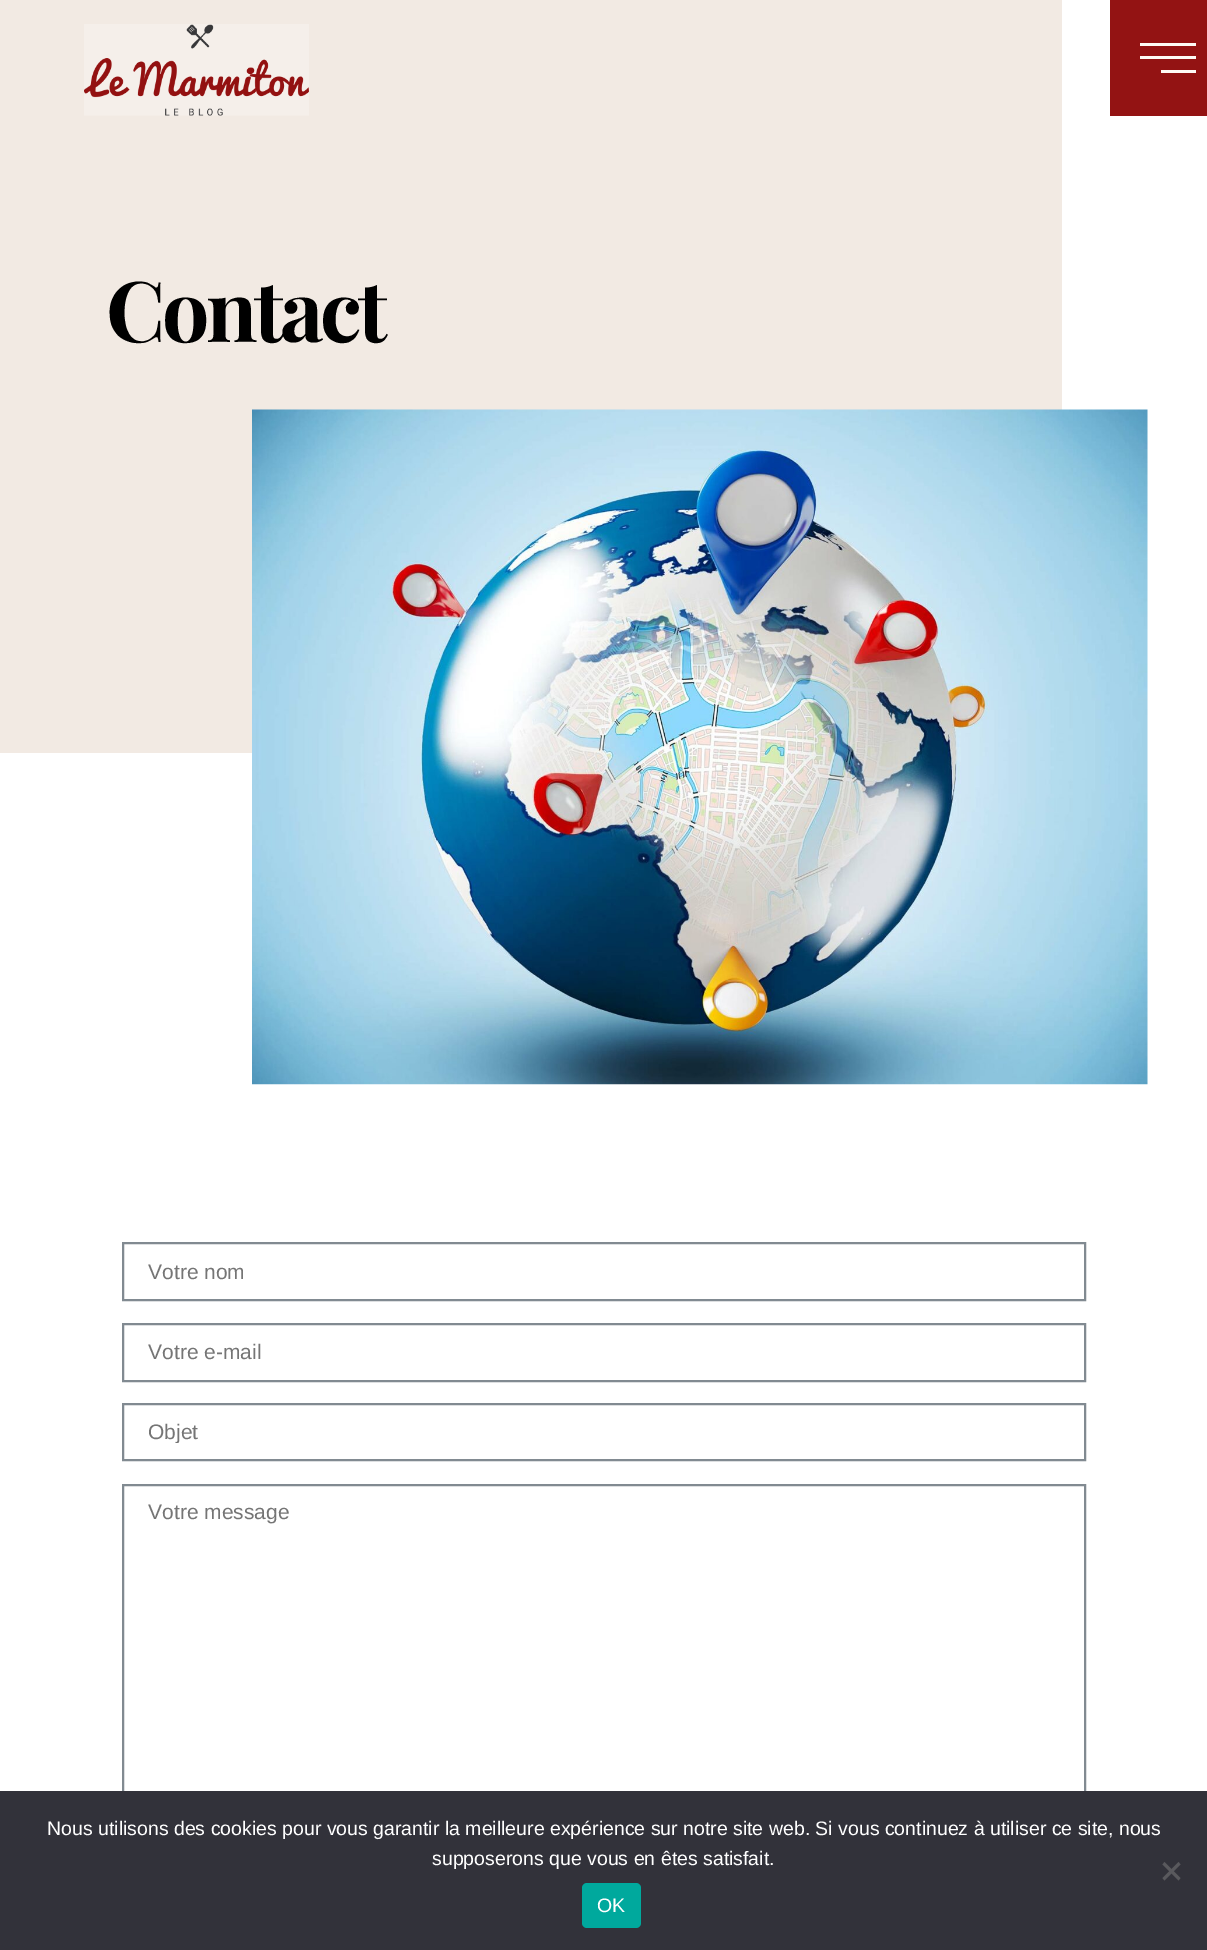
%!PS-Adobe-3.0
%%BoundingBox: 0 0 1207 1950
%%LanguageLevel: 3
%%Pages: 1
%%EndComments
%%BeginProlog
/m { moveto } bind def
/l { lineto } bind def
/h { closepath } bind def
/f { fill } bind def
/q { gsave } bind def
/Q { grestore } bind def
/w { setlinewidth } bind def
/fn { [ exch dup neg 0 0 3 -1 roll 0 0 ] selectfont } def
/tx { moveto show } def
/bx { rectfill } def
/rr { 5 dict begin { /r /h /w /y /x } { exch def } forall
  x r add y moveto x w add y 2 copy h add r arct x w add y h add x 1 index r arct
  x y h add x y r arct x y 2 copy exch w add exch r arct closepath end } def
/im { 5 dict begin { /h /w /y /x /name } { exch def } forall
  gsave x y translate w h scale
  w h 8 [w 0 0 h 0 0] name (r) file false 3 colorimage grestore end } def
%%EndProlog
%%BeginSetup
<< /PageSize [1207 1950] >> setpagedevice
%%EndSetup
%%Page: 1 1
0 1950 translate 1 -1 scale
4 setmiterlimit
1 setgray
0 0 1207 1950 bx
0.949 0.918 0.89 setrgbcolor
0 0 1062 753 bx
(image0.raw) 84 24 225 92 im
0.576 0.075 0.075 setrgbcolor
1110 0 97 116 bx
1 0.98 0.961 setrgbcolor
1140 43 56 3 bx
1140 56 56 3 bx
1161 70 35 3 bx
/PlayfairDisplay-Bold 84 fn
0 setgray
106 342 m -3.5 0 (Contact) ashow
(image1.raw) 252 409 896 676 im
0.506 0.541 0.569 setrgbcolor
2 w
123 1243 962 57 rectstroke
/LiberationSans-Regular 21 fn
0.459 setgray
(Votre nom) 148 1279 tx
0.506 0.541 0.569 setrgbcolor
123 1324 962 57 rectstroke
0.459 setgray
(Votre e-mail) 148 1359 tx
0.506 0.541 0.569 setrgbcolor
123 1404 962 56 rectstroke
q
147 1419 914 24 rectclip
0.459 setgray
(Objet) 148 1439 tx
Q
123 1485 962 340 rectstroke
0.459 setgray
(Votre message) 148 1519 tx
0.196 0.196 0.227 setrgbcolor
0 1791 1207 159 bx
/LiberationSans-Regular 19.5 fn
1 setgray
(Nous utilisons des cookies pour vous garantir la meilleure expérience sur notre site web. Si vous continuez à utiliser ce site, nous) 47 1835 tx
(supposerons que vous en êtes satisfait.) 432 1865 tx
0.349 0.349 0.365 setrgbcolor
1178.5 1862 m 1180.5 1864.5 l 1164.5 1880.5 l 1162.5 1878 l h f
1162.5 1864.5 m 1164.5 1862 l 1180.5 1878 l 1178.5 1880.5 l h f
0 0.663 0.616 setrgbcolor
582 1883 59 45 5 rr f
1 setgray
(OK) 597 1912 tx
showpage
%%EOF
